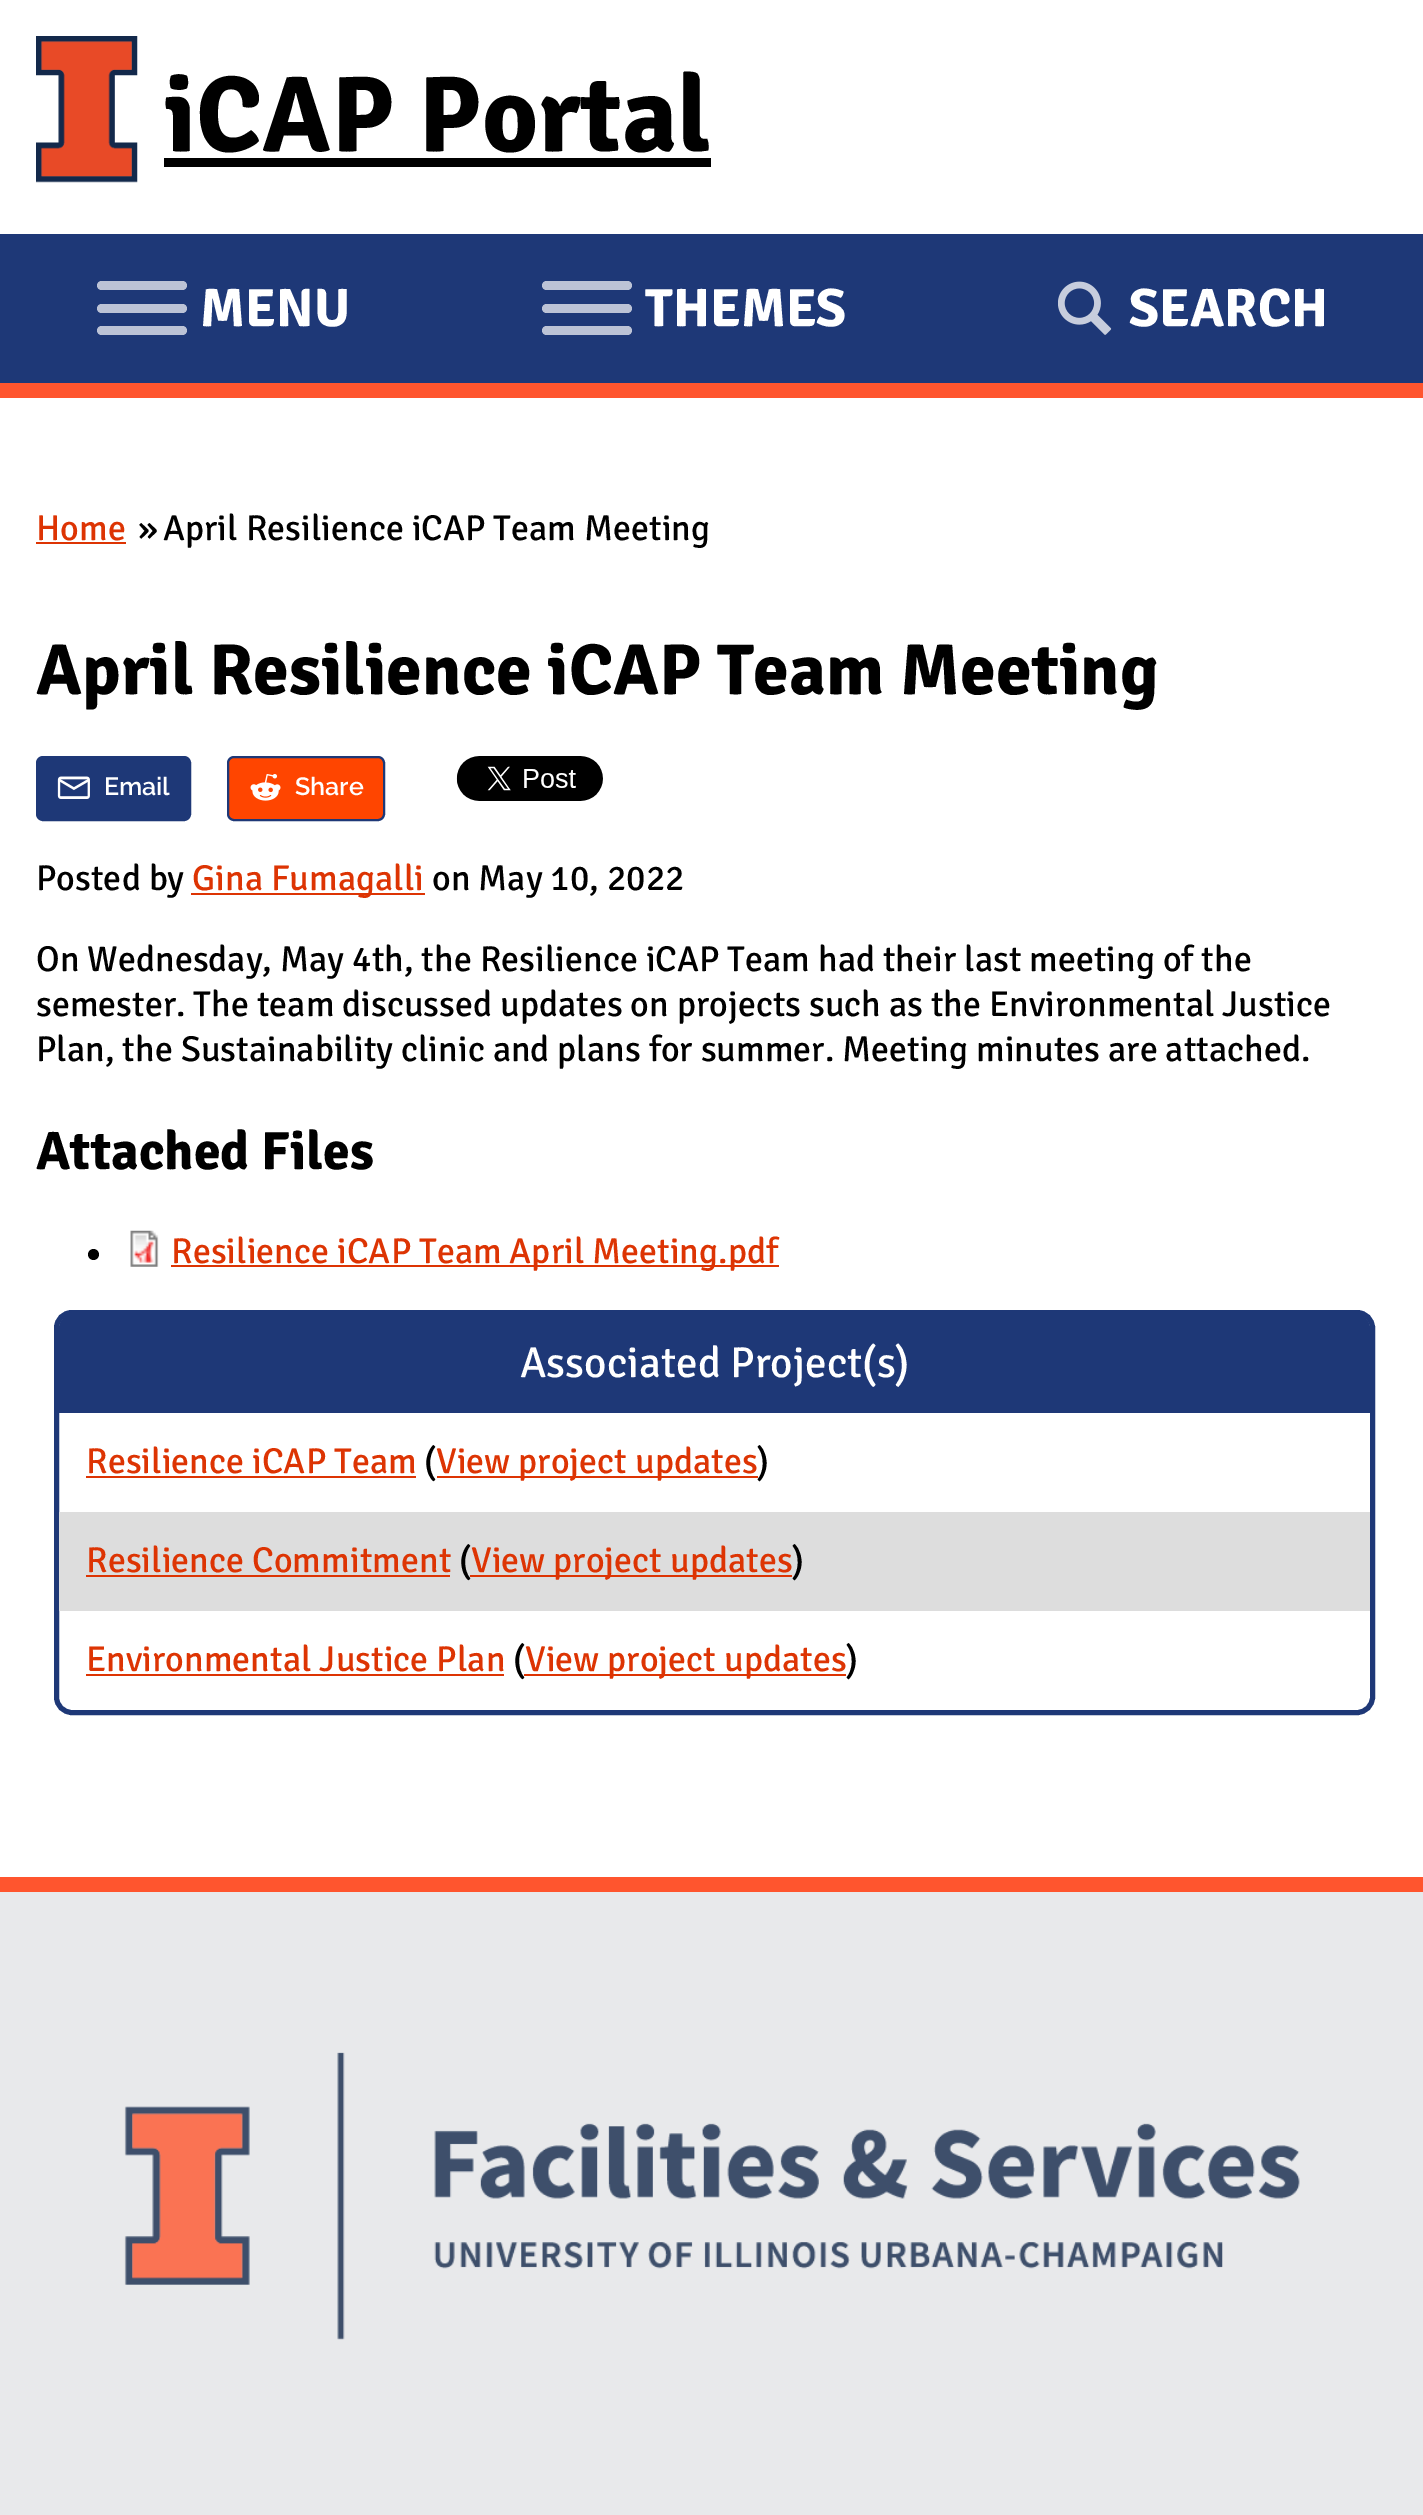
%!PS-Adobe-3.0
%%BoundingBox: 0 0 1423 2515
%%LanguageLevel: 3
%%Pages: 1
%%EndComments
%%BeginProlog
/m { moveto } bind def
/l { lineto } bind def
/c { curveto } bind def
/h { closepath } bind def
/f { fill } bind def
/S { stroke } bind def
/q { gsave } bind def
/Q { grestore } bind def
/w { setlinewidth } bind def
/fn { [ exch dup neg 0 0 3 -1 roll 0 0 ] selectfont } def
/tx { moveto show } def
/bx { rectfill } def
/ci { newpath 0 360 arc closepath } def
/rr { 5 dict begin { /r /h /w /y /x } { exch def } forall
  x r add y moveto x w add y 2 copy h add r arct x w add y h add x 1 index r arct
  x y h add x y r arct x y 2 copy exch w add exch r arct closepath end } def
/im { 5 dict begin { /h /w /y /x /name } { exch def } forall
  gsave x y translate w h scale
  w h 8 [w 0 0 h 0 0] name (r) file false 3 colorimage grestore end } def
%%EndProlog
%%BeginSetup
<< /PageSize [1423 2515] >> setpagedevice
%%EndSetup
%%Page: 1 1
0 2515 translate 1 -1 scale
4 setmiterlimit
1 setgray
0 0 1423 2515 bx
(image0.raw) 36 36 102 147 im
/Signika-Bold 108 fn
0 setgray
(iCAP Portal) 164 151 tx
164 158 547 9 bx
1 0.333 0.18 setrgbcolor
0 383 1423 15 bx
0.118 0.22 0.467 setrgbcolor
0 234 1423 149 bx
0.737 0.765 0.839 setrgbcolor
97 326 90 9 4.5 rr f
97 281 90 9 4.5 rr f
97 304 90 9 4.5 rr f
/Signika-Bold 54 fn
1 setgray
(MENU) 200 326 tx
0.737 0.765 0.839 setrgbcolor
542 326 90 9 4.5 rr f
542 281 90 9 4.5 rr f
542 304 90 9 4.5 rr f
1 setgray
(THEMES) 645 326 tx
(image1.raw) 1058 281 54 54 im
(SEARCH) 1129 326 tx
/Signika-Regular 36 fn
0.867 0.204 0.012 setrgbcolor
(Home) 36 540 tx
36 542 90 2 bx
0 setgray
(») 138 540 tx
(April Resilience iCAP Team Meeting) 163 540 tx
/Signika-Bold 72 fn
(April Resilience iCAP Team Meeting) 36 694 tx
0.118 0.22 0.467 setrgbcolor
37 757 153 63 6 rr q f Q
2 w
S
(image2.raw) 57 776 33 23 im
/Raleway-SemiBold 25 fn
1 setgray
(Email) 104 795 tx
1 0.271 0 setrgbcolor
228 757 156 63 6 rr q f Q
0.118 0.22 0.467 setrgbcolor
S
(image3.raw) 250 774 31 27 im
1 setgray
(Share) 295 795 tx
(image4.raw) 456 756 147 45 im
/Signika-Regular 36 fn
0 setgray
(Posted by) 36 890 tx
0.867 0.204 0.012 setrgbcolor
191 893 234 2 bx
(Gina Fumagalli) 192 890 tx
0 setgray
(on May 10, 2022) 432 890 tx
(On Wednesday, May 4th, the Resilience iCAP Team had their last meeting of the) 36 971 tx
(semester. The team discussed updates on projects such as the Environmental Justice) 36 1016 tx
(Plan, the Sustainability clinic and plans for summer. Meeting minutes are attached.) 36 1061 tx
/Signika-Bold 54 fn
(Attached Files) 36 1169 tx
93.5 1254.5 5.5 ci f
(image5.raw) 130 1230 29 37 im
0.867 0.204 0.012 setrgbcolor
171 1265 608 2 bx
/Signika-Regular 36 fn
(Resilience iCAP Team April Meeting.pdf) 171 1263 tx
0.118 0.22 0.467 setrgbcolor
5 w
56.5 1312.5 1316 400 15.5 rr S
73 1314 m 1356 1314 l 1363.5 1314 1370 1320.5 1370 1328 c 1370 1413 l 59 1413 l 59 1328 l 59 1320.5 65.5 1314 73 1314 c h f
/Signika-Regular 43.25 fn
1 setgray
(Associated Project\(s\)) 520 1377 tx
/Signika-Regular 36 fn
0.867 0.204 0.012 setrgbcolor
(Resilience iCAP Team) 86 1473 tx
86 1476 330 2 bx
0 setgray
(\() 424 1473 tx
0.867 0.204 0.012 setrgbcolor
437 1476 321 2 bx
(View project updates) 436 1473 tx
0 setgray
(\)) 757 1473 tx
0.867 setgray
59 1512 1311 99 bx
0.867 0.204 0.012 setrgbcolor
(Resilience Commitment) 86 1572 tx
86 1575 364 2 bx
0 setgray
(\() 459 1572 tx
0.867 0.204 0.012 setrgbcolor
470 1575 322 2 bx
(View project updates) 471 1572 tx
0 setgray
(\)) 792 1572 tx
0.867 0.204 0.012 setrgbcolor
(Environmental Justice Plan) 86 1671 tx
86 1674 418 2 bx
0 setgray
(\() 513 1671 tx
0.867 0.204 0.012 setrgbcolor
524 1674 322 2 bx
(View project updates) 525 1671 tx
0 setgray
(\)) 846 1671 tx
0.91 0.914 0.922 setrgbcolor
0 1892 1423 623 bx
1 0.333 0.18 setrgbcolor
0 1877 1423 15 bx
(image6.raw) 124 2052 1176 288 im
showpage
%%EOF
